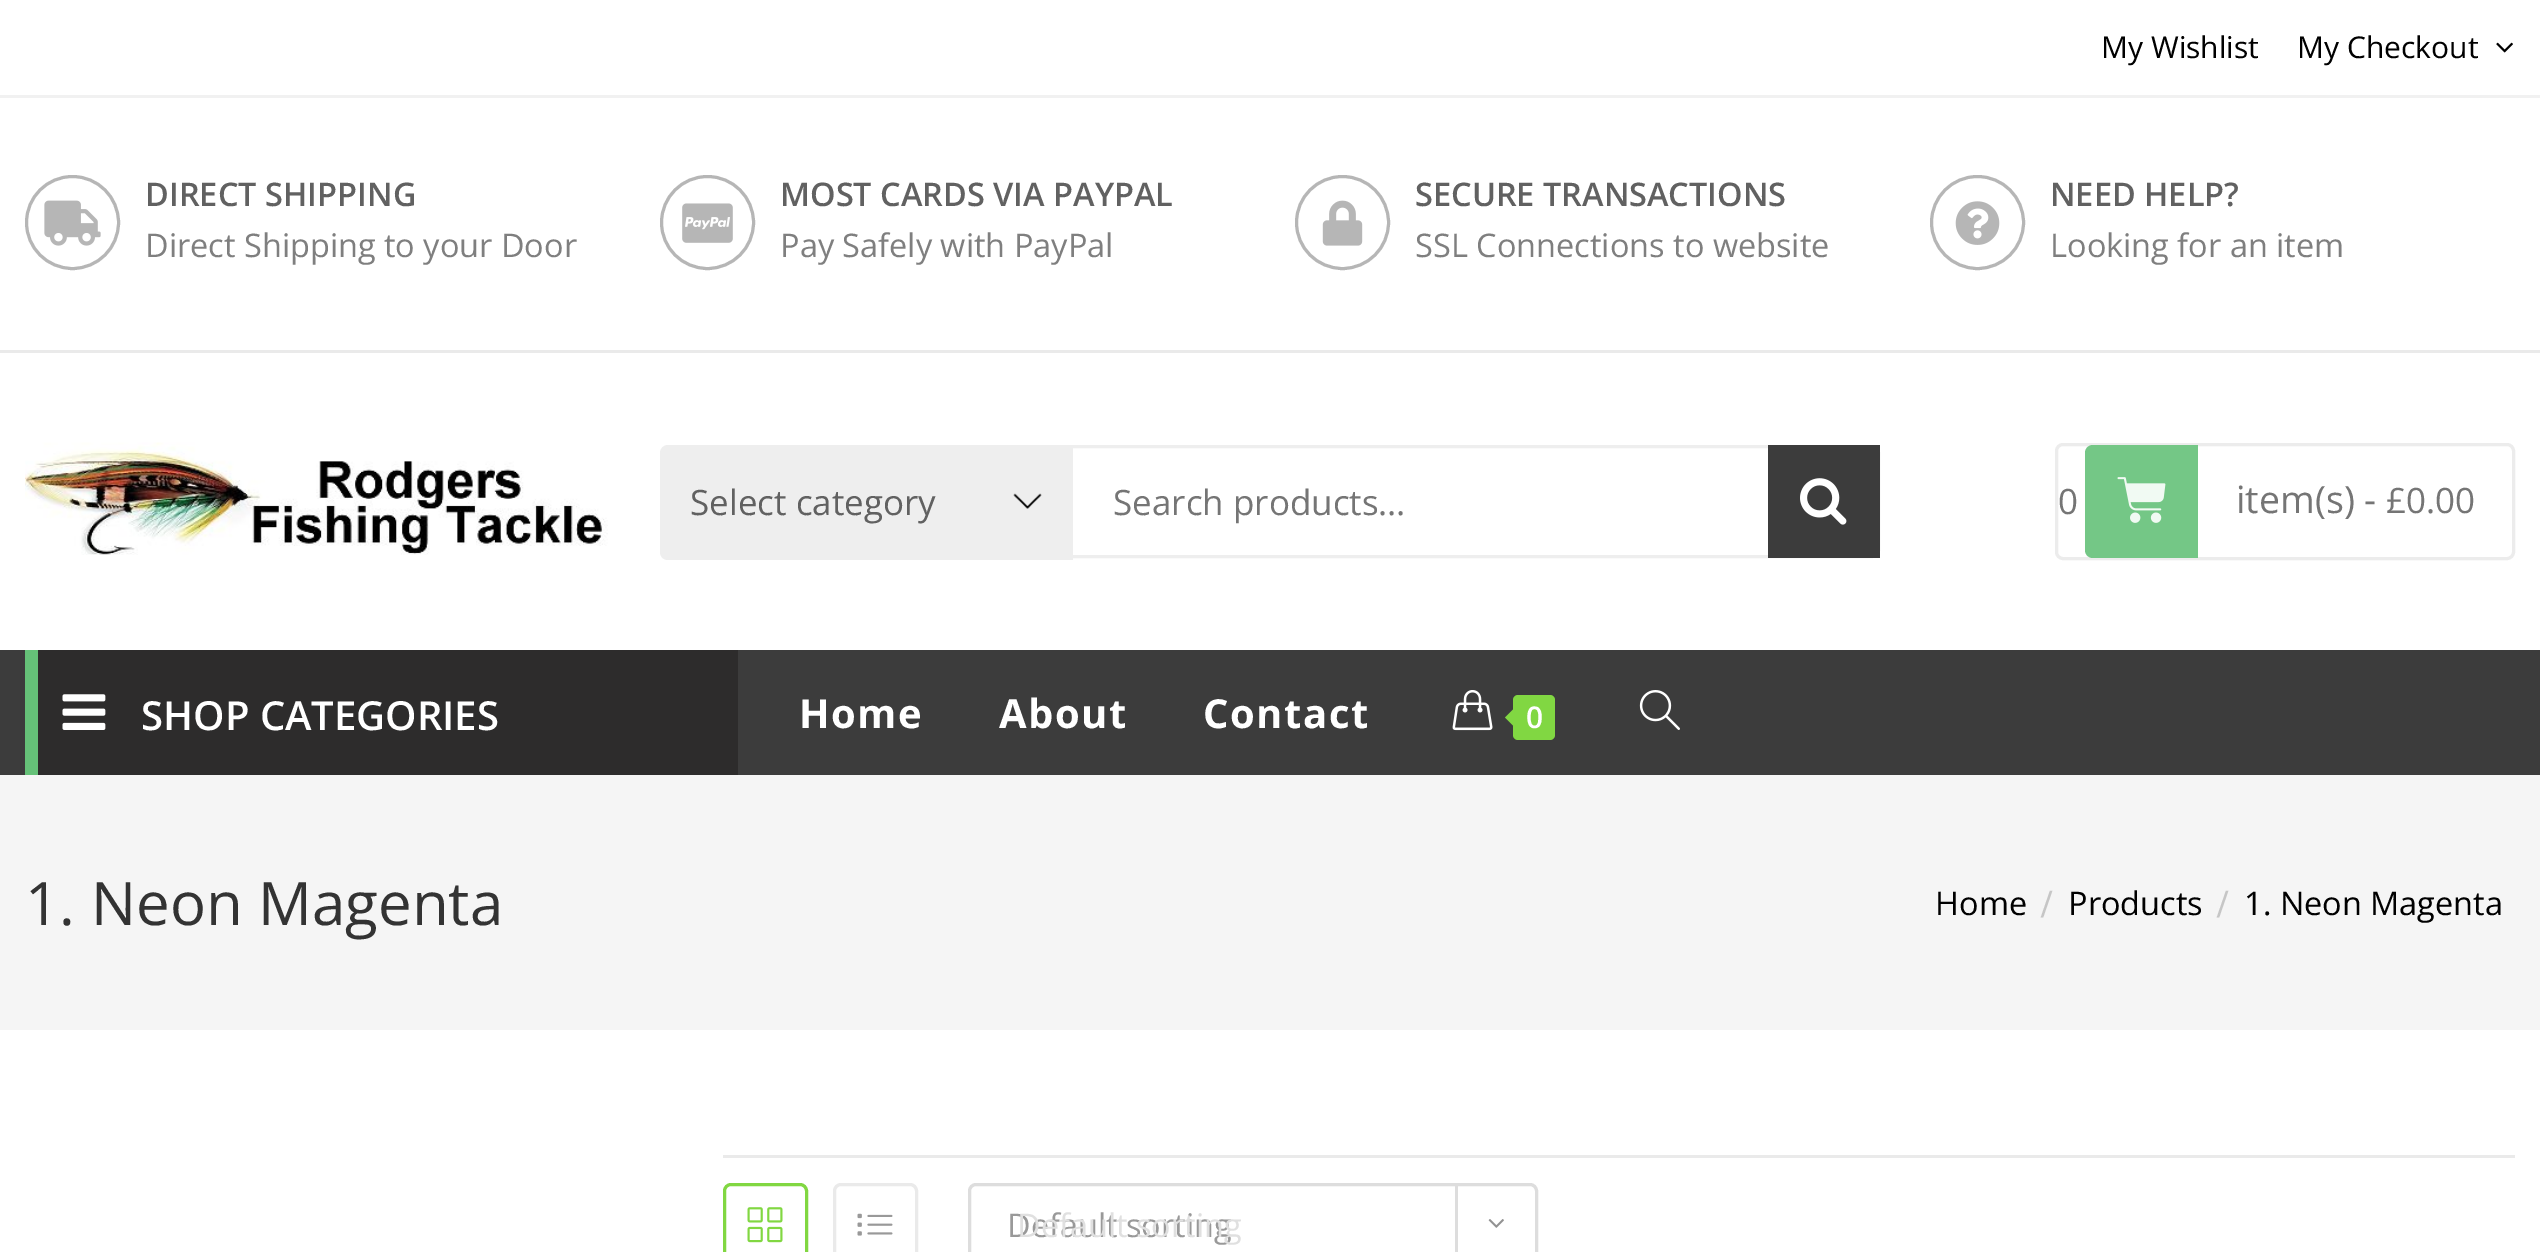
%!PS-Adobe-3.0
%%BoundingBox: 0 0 2540 1252
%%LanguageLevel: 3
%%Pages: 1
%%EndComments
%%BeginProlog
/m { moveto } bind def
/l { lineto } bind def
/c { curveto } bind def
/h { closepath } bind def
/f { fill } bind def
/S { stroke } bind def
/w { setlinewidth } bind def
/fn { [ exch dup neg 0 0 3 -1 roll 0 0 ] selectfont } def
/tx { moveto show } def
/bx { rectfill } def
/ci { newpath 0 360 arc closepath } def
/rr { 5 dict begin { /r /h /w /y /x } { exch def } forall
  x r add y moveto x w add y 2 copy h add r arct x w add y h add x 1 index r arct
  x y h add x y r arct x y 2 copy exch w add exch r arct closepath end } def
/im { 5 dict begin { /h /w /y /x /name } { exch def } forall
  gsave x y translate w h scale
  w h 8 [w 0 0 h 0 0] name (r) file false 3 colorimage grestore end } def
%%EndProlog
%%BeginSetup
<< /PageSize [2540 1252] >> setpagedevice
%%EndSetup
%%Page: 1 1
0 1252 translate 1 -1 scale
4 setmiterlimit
1 setgray
0 0 2540 1252 bx
0.945 setgray
0 95 2540 3 bx
/OpenSans-Regular 30 fn
0 setgray
(My Wishlist) 2101 58 tx
(My Checkout) 2297 58 tx
(image0.raw) 2496 42 17 11 im
0.918 setgray
0 350 2540 3 bx
0.714 setgray
3 w
72.5 222.5 46 ci S
(image1.raw) 44 200 57 46 im
/OpenSans-SemiBold 32.5 fn
0.38 setgray
(DIRECT SHIPPING) 145 206 tx
/OpenSans-Regular 32.5 fn
0.498 setgray
(Direct Shipping to your Door) 145 257 tx
0.714 setgray
707.5 222.5 46 ci S
(image2.raw) 682 203 51 40 im
/OpenSans-SemiBold 32.5 fn
0.38 setgray
(MOST CARDS VIA PAYPAL) 780 206 tx
/OpenSans-Regular 32.5 fn
0.498 setgray
(Pay Safely with PayPal) 780 257 tx
0.714 setgray
1342.5 222.5 46 ci S
(image3.raw) 1322 200 41 46 im
/OpenSans-SemiBold 32.5 fn
0.38 setgray
(SECURE TRANSACTIONS) 1415 206 tx
/OpenSans-Regular 32.5 fn
0.498 setgray
(SSL Connections to website) 1415 257 tx
0.714 setgray
1977.5 222.5 46 ci S
(image4.raw) 1955 201 45 44 im
/OpenSans-SemiBold 32.5 fn
0.38 setgray
(NEED HELP?) 2050 206 tx
/OpenSans-Regular 32.5 fn
0.498 setgray
(Looking for an item) 2050 257 tx
(image5.raw) 25 442 583 113 im
0.933 setgray
661.5 446.5 1217 110 6.5 rr S
668 448 m 1073 448 l 1073 560 l 668 560 l 663.5 560 660 556.5 660 552 c 660 456 l 660 451.5 663.5 448 668 448 c h f
(image6.raw) 1013 493 29 16 im
/OpenSans-Regular 35 fn
0.38 setgray
(Select category) 690 515 tx
0.459 setgray
(Search products…) 1113 515 tx
0.235 setgray
1768 445 112 113 bx
(image7.raw) 1800 478 47 47 im
0.925 setgray
2056.5 444.5 457 114 6.5 rr S
0.459 setgray
(0) 2058 514 tx
0.455 0.78 0.525 setrgbcolor
2093 445 m 2198 445 l 2198 558 l 2093 558 l 2088.5 558 2085 554.5 2085 550 c 2085 453 l 2085 448.5 2088.5 445 2093 445 c h f
(image8.raw) 2117 477 49 46 im
/OpenSans-Regular 37.5 fn
0.459 setgray
(item\(s\) -) 2236 513 tx
/OpenSans-Regular 35 fn
(£0.00) 2386 513 tx
0.235 setgray
0 650 2540 125 bx
0.176 0.173 0.173 setrgbcolor
38 650 700 125 bx
0.396 0.757 0.471 setrgbcolor
25 650 13 125 bx
(image9.raw) 62 694 44 36 im
/OpenSans-SemiBold 40 fn
1 setgray
(SHOP CATEGORIES) 141 730 tx
/OpenSans-Bold 40 fn
799 728 m 1.5 0 (Home) ashow
999 728 m 1.5 0 (About) ashow
1203 728 m 1.5 0 (Contact) ashow
(image10.raw) 1452 690 41 41 im
0.506 0.843 0.259 setrgbcolor
1513 695 42 45 5 rr f
1517.5 705 m 1517.5 730 l 1505 717.5 l h f
/OpenSans-SemiBold 30 fn
1 setgray
(0) 1526 728 tx
(image11.raw) 1639 690 41 40 im
0.961 setgray
0 775 2540 255 bx
/OpenSans-Regular 60 fn
0.2 setgray
(1. Neon Magenta) 25 925 tx
/OpenSans-Regular 32.5 fn
0 setgray
(Home) 1935 915 tx
/LiberationSerif-Bold 40 fn
0.776 setgray
(/) 2041 917 tx
/OpenSans-Regular 32.5 fn
0 setgray
(Products) 2068 915 tx
/LiberationSerif-Bold 40 fn
0.776 setgray
(/) 2217 917 tx
/OpenSans-Regular 32.5 fn
0 setgray
(1. Neon Magenta) 2244 915 tx
0.918 setgray
723 1155 1792 3 bx
0.506 0.843 0.259 setrgbcolor
724.5 1184.5 82 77 6.5 rr S
(image12.raw) 747 1207 36 36 im
0.918 setgray
834.5 1184.5 82 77 6.5 rr S
(image13.raw) 857 1213 36 23 im
0.867 setgray
969.5 1184.5 567 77 6.5 rr S
0.6 setgray
(Default sorting) 1007 1237 tx
0.867 setgray
1455 1185 3 67 bx
(image14.raw) 1488 1219 16 9 im
0.878 setgray
(Default sorting) 1017 1237 tx
showpage
%%EOF
